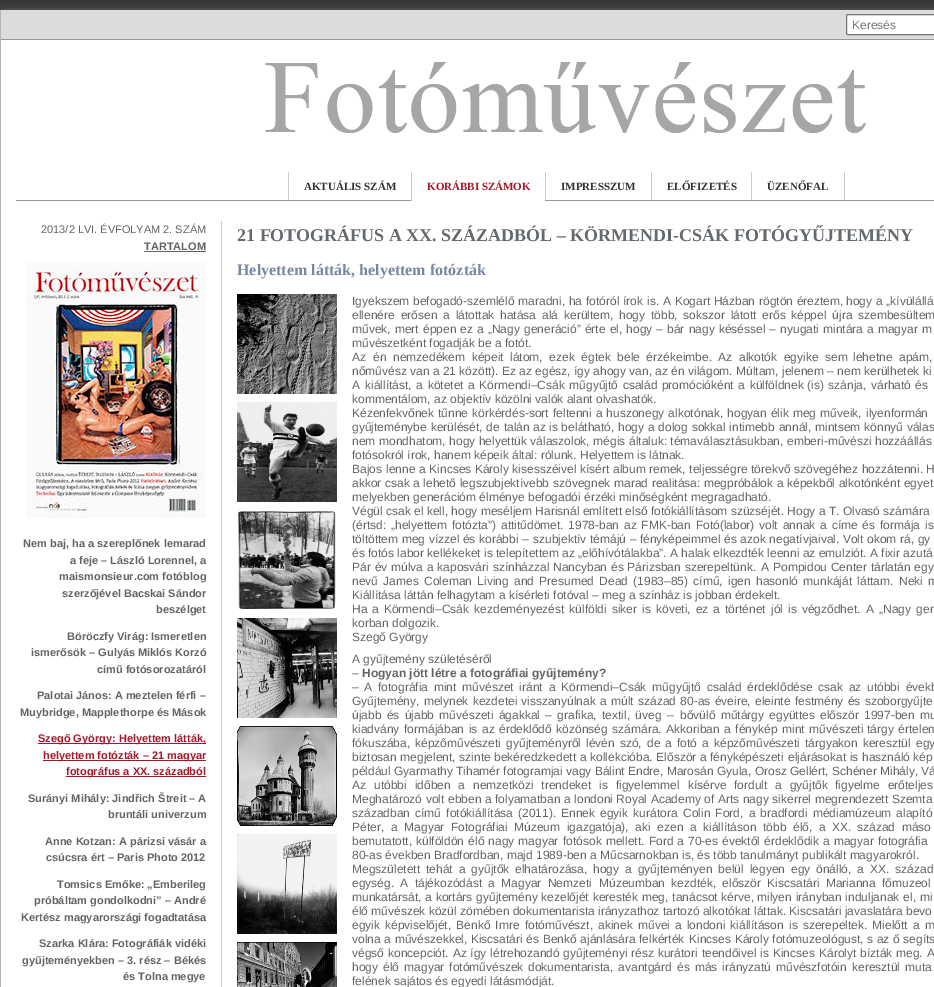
%!PS-Adobe-3.0
%%BoundingBox: 0 0 934 987
%%LanguageLevel: 3
%%Pages: 1
%%EndComments
%%BeginProlog
/m { moveto } bind def
/f { fill } bind def
/S { stroke } bind def
/q { gsave } bind def
/Q { grestore } bind def
/fn { [ exch dup neg 0 0 3 -1 roll 0 0 ] selectfont } def
/tx { moveto show } def
/bx { rectfill } def
/al { dup .setfillconstantalpha .setstrokeconstantalpha } def
/rr { 5 dict begin { /r /h /w /y /x } { exch def } forall
  x r add y moveto x w add y 2 copy h add r arct x w add y h add x 1 index r arct
  x y h add x y r arct x y 2 copy exch w add exch r arct closepath end } def
/sh { 12 dict begin { /a /b /q /h /w /y /x } { exch def } forall gsave /was 0 def
  9 -2 -9 { dup b mul 4 div /e exch def 1 sub .425 mul 2.718 exch exp 1 add a .99 .min exch div /now exch def
    1 1 now sub 1 was sub div sub al /was now def
    w h .min e 2 mul add 0 gt { x e sub y e sub w e 2 mul add h e 2 mul add
      q e add b .6 mul add w h .min 2 div e add .min 0 .max rr fill } if } for grestore end } def
/im { 5 dict begin { /h /w /y /x /name } { exch def } forall
  gsave x y translate w h scale
  w h 8 [w 0 0 h 0 0] name (r) file false 3 colorimage grestore end } def
%%EndProlog
%%BeginSetup
<< /PageSize [934 987] /PageUsesTransparency true >> setpagedevice
%%EndSetup
%%Page: 1 1
0 .pushpdf14devicefilter
0 987 translate 1 -1 scale
4 setmiterlimit
0.196 setgray
0 0 934 987 bx
0.533 setgray
2 14 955 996 0 7.5 1 sh
1 setgray
1 40 933 947 bx
0.706 setgray
0 10 1 977 bx
0.863 setgray
1 10 933 29 bx
0.596 setgray
1 39 933 1 bx
1 setgray
846.5 14.5 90 20 1.5 rr q f Q
0.463 setgray
S
/LiberationSans-Regular 12 fn
0.459 setgray
(Keresés) 852 29 tx
(image0.raw) 265 62 601 71 im
0.596 setgray
16 200 918 1 bx
0.8 setgray
288 172 1 28 bx
/LiberationSerif-Bold 11 fn
0.196 setgray
(AKTUÁLIS SZÁM) 304 190 tx
1 setgray
411 200 134 1 bx
0.8 setgray
411 172 1 29 bx
0.667 0.078 0.157 setrgbcolor
(KORÁBBI SZÁMOK) 427 190 tx
0.8 setgray
545 172 1 28 bx
0.196 setgray
(IMPRESSZUM) 561 190 tx
0.8 setgray
651 172 1 28 bx
0.196 setgray
(ELŐFIZETÉS) 667 190 tx
0.8 setgray
844 172 1 28 bx
751 172 1 28 bx
0.196 setgray
(ÜZENŐFAL) 767 190 tx
0.8 setgray
221 221 1 766 bx
/LiberationSans-Regular 11 fn
0.392 setgray
(2013/2 LVI. ÉVFOLYAM 2. SZÁM) 41 233 tx
/LiberationSans-Bold 11 fn
(TARTALOM) 144 250 tx
144 251 62 1 bx
(image1.raw) 26 262 180 256 im
(Nem baj, ha a szereplőnek lemarad) 23 547 tx
(a feje – László Lorennel, a) 70 564 tx
(maismonsieur.com fotóblog) 59 580 tx
(szerzőjével Bacskai Sándor) 62 597 tx
(beszélget) 156 613 tx
(Böröczfy Virág: Ismeretlen) 67 640 tx
(ismerősök – Gulyás Miklós Korzó) 31 656 tx
(című fotósorozatáról) 97 673 tx
(Palotai János: A meztelen férfi –) 37 699 tx
(Muybridge, Mapplethorpe és Mások) 20 716 tx
0.667 0.078 0.157 setrgbcolor
38 743 168 1 bx
(Szegő György: Helyettem látták,) 38 742 tx
43 760 163 1 bx
(helyettem fotózták – 21 magyar) 43 759 tx
66 776 140 1 bx
(fotográfus a XX. századból) 66 775 tx
0.392 setgray
(Surányi Mihály: Jindřich Štreit – A) 28 802 tx
(bruntáli univerzum) 108 818 tx
(Anne Kotzan: A párizsi vásár a) 45 845 tx
(csúcsra ért – Paris Photo 2012) 46 861 tx
(Tomsics Emőke: „Emberileg) 57 888 tx
(próbáltam gondolkodni” – André) 34 904 tx
(Kertész magyarországi fogadtatása) 21 921 tx
(Szarka Klára: Fotográfiák vidéki) 39 947 tx
(gyűjteményekben – 3. rész – Békés) 22 964 tx
(és Tolna megye) 123 980 tx
/LiberationSerif-Bold 18 fn
0.392 0.412 0.431 setrgbcolor
(21 FOTOGRÁFUS A XX. SZÁZADBÓL – KÖRMENDI-CSÁK FOTÓGYŰJTEMÉNY) 237 241 tx
/LiberationSerif-Bold 16 fn
0.471 0.529 0.627 setrgbcolor
(Helyettem látták, helyettem fotózták) 237 275 tx
(image2.raw) 237 294 100 100 im
(image3.raw) 237 402 100 100 im
(image4.raw) 237 511 99 98 im
(image5.raw) 237 618 100 100 im
(image6.raw) 237 726 100 100 im
(image7.raw) 237 834 100 100 im
(image8.raw) 237 942 100 45 im
/LiberationSans-Regular 12 fn
0.392 setgray
(Igyekszem) 352 305 tx
413 305 m 0.5 0 32 (befogadó-szemlélő maradni, ha fotóról írok is. A Kogart Házban rögtön éreztem,) widthshow
846 305 m 0.5 0 32 (hogy a „kívülállá) widthshow
352 319 m 2.5 0 32 (ellenére erősen a látottak hatása) widthshow
542 319 m 2.5 0 32 (alá kerültem, hogy több, sokszor látott erős) widthshow
791 319 m 2.5 0 32 (képpel újra szembesültem) widthshow
352 333 m 0.75 0 32 (művek, mert éppen ez a „Nagy) widthshow
524 333 m 0.75 0 32 (generáció” érte el, hogy – bár nagy késéssel – nyugati mintára a magyar m) widthshow
(művészetként fogadják be a fotót.) 352 347 tx
(Az) 352 361 tx
373 361 m 3.25 0 32 (én nemzedékem képeit látom, ezek égtek bele érzékeimbe. Az alkotók egyike sem) widthshow
853 361 m 3.25 0 32 (lehetne apám,) widthshow
(nőművész van a 21 között\). Ez az egész, így ahogy van, az én világom. Múltam, jelenem – nem kerülhetek ki) 352 375 tx
(A) 352 389 tx
365 389 m 1.25 0 32 (kiállítást, a kötetet a Körmendi–Csák műgyűjtő család promócióként a külföldnek) widthshow
807 389 m 1.25 0 32 (\(is\) szánja, várható és) widthshow
(kommentálom, az objektív közölni valók alant olvashatók.) 352 403 tx
(Kézenfekvőnek) 352 417 tx
438 417 m 0.75 0 32 (tűnne körkérdés-sort feltenni a huszonegy alkotónak, hogyan élik meg műveik,) widthshow
866 417 m 0.75 0 32 (ilyenformán) widthshow
352 431 m 0.5 0 32 (gyűjteménybe kerülését, de talán az) widthshow
549 431 m 0.5 0 32 (is belátható, hogy a dolog sokkal intimebb annál, mintsem könnyű válas) widthshow
352 445 m 0.25 0 32 (nem mondhatom, hogy helyettük válaszolok, mégis általuk: témaválasztásukban,) widthshow
(emberi-művészi hozzáállás) 787 445 tx
(fotósokról írok, hanem képeik által: rólunk. Helyettem is látnak.) 352 459 tx
(Bajos) 352 473 tx
386 473 m 0.25 0 32 (lenne a Kincses Károly kisesszéivel kísért album remek, teljességre törekvő szövegéhez hozzátenni. H) widthshow
352 487 m 0.25 0 32 (akkor csak a lehető legszubjektívebb) widthshow
553 487 m 0.25 0 32 (szövegnek marad realitása: megpróbálok a képekből alkotónként egyet) widthshow
(melyekben generációm élménye befogadói érzéki minőségként megragadható.) 352 501 tx
(Végül csak el kell, hogy meséljem Harisnál említett első fotókiállításom szüzséjét. Hogy a T. Olvasó számára) 352 515 tx
352 529 m 1.5 0 32 (\(értsd: „helyettem) widthshow
452 529 m 1.5 0 32 (fotózta”\) attitűdömet. 1978-ban az FMK-ban Fotó\(labor\) volt annak a címe és) widthshow
880 529 m 1.5 0 32 (formája is) widthshow
352 543 m 0.25 0 32 (töltöttem meg vízzel és korábbi –) widthshow
533 543 m 0.25 0 32 (szubjektív témájú – fényképeimmel és azok negatívjaival. Volt okom rá, gy) widthshow
(és fotós labor kellékeket is telepítettem az „előhívótálakba”. A halak elkezdték leenni az emulziót. A fixir azutá) 352 557 tx
352 571 m 0.5 0 32 (Pár év múlva a kaposvári színházzal Nancyban és Párizsban szerepeltünk.) widthshow
761 571 m 0.5 0 32 (A Pompidou Center tárlatán egy) widthshow
352 585 m 2 0 32 (nevű James) widthshow
424 585 m 2 0 32 (Coleman Living and Presumed Dead \(1983–85\) című, igen hasonló munkáját láttam.) widthshow
899 585 m 2 0 32 (Neki m) widthshow
(Kiállítása láttán felhagytam a kísérleti fotóval – meg a színház is jobban érdekelt.) 352 599 tx
(Ha) 352 613 tx
372 613 m 1.75 0 32 (a Körmendi–Csák kezdeményezést külföldi siker is követi, ez a történet jól is végződhet.) widthshow
866 613 m 1.75 0 32 (A „Nagy gen) widthshow
(korban dolgozik.) 352 627 tx
(Szegő György) 352 641 tx
(A gyűjtemény születéséről) 352 663 tx
(–) 352 677 tx
/LiberationSans-Bold 12 fn
(Hogyan jött létre a fotográfiai gyűjtemény?) 362 677 tx
/LiberationSans-Regular 12 fn
(–) 352 691 tx
364 691 m 2.5 0 32 (A fotográfia mint művészet iránt a Körmendi–Csák műgyűjtő család érdeklődése) widthshow
818 691 m 2.5 0 32 (csak az utóbbi évekb) widthshow
352 705 m 1 0 32 (Gyűjtemény, melynek kezdetei) widthshow
521 705 m 1 0 32 (visszanyúlnak a múlt század 80-as éveire, eleinte festmény és szoborgyűjte) widthshow
352 719 m 2 0 32 (újabb és újabb művészeti ágakkal – grafika, textil, üveg –) widthshow
680 719 m 2 0 32 (bővülő műtárgy együttes először 1997-ben mu) widthshow
(kiadvány) 352 733 tx
404 733 m 1.25 0 32 (formájában is az érdeklődő közönség számára. Akkoriban a fénykép mint művészeti) widthshow
867 733 m 1.25 0 32 (tárgy értelem) widthshow
352 747 m 1.75 0 32 (fókuszába, képzőművészeti gyűjteményről) widthshow
586 747 m 1.75 0 32 (lévén szó, de a fotó a képzőművészeti tárgyakon keresztül egy) widthshow
352 761 m 0.25 0 32 (biztosan megjelent, szinte bekéredzkedett a kollekcióba. Először a fényképészeti) widthshow
788 761 m 0.25 0 32 (eljárásokat is használó kép) widthshow
(például Gyarmathy Tihamér fotogramjai vagy Bálint Endre, Marosán Gyula, Orosz Gellért, Schéner Mihály, Vá) 352 775 tx
(Az) 352 789 tx
374 789 m 4.5 0 32 (utóbbi időben a nemzetközi trendeket is figyelemmel kísérve fordult a gyűjtők) widthshow
835 789 m 4.5 0 32 (figyelme erőteljes) widthshow
352 803 m 0.25 0 32 (Meghatározó volt ebben a) widthshow
495 803 m 0.25 0 32 (folyamatban a londoni Royal Academy of Arts nagy sikerrel megrendezett Szemta) widthshow
352 817 m 1.75 0 32 (században című fotókiállítása \(2011\). Ennek egyik kurátora) widthshow
683 817 m 1.75 0 32 (Colin Ford, a bradfordi médiamúzeum alapító) widthshow
(Péter,) 352 831 tx
391 831 m 3.25 0 32 (a Magyar Fotográfiai Múzeum igazgatója\), aki ezen a kiállításon több élő, a XX.) widthshow
857 831 m 3.25 0 32 (század máso) widthshow
352 845 m 0.75 0 32 (bemutatott, külföldön élő nagy magyar) widthshow
563 845 m 0.75 0 32 (fotósok mellett. Ford a 70-es évektől érdeklődik a magyar fotográfia) widthshow
(80-as években Bradfordban, majd 1989-ben a Műcsarnokban is, és több tanulmányt publikált magyarokról.) 352 859 tx
(Megszületett) 352 873 tx
426 873 m 2.6 0 32 (tehát a gyűjtők elhatározása, hogy a gyűjteményen belül legyen egy önálló, a) widthshow
870 873 m 2.6 0 32 (XX. század) widthshow
352 887 m 3 0 32 (egység. A tájékozódást a Magyar Nemzeti) widthshow
599 887 m 3 0 32 (Múzeumban kezdték, először Kiscsatári Marianna főmuzeol) widthshow
352 901 m 0.5 0 32 (munkatársát, a kortárs gyűjtemény kezelőjét keresték meg, tanácsot kérve,) widthshow
757 901 m 0.5 0 32 (milyen irányban induljanak el, mi) widthshow
(élő művészek közül zömében dokumentarista irányzathoz tartozó alkotókat láttak. Kiscsatári javaslatára bevo) 352 915 tx
352 929 m 1.75 0 32 (egyik képviselőjét, Benkő Imre) widthshow
525 929 m 1.75 0 32 (fotóművészt, akinek művei a londoni kiállításon is szerepeltek. Mielőtt a m) widthshow
352 943 m 0.25 0 32 (volna a művészekkel, Kiscsatári és Benkő ajánlására felkérték) widthshow
689 943 m 0.25 0 32 (Kincses Károly fotómuzeológust, s az ő segíts) widthshow
(végső) 352 957 tx
388 957 m 0.5 0 32 (koncepciót. Az így létrehozandó gyűjteményi rész kurátori teendőivel is Kincses) widthshow
819 957 m 0.5 0 32 (Károlyt bízták meg. A) widthshow
352 971 m 1.75 0 32 (hogy élő magyar fotóművészek) widthshow
528 971 m 1.75 0 32 (dokumentarista, avantgárd és más irányzatú művészfotóin keresztül muta) widthshow
(felének sajátos és egyedi látásmódját.) 352 985 tx
.poppdf14devicefilter showpage
%%EOF
